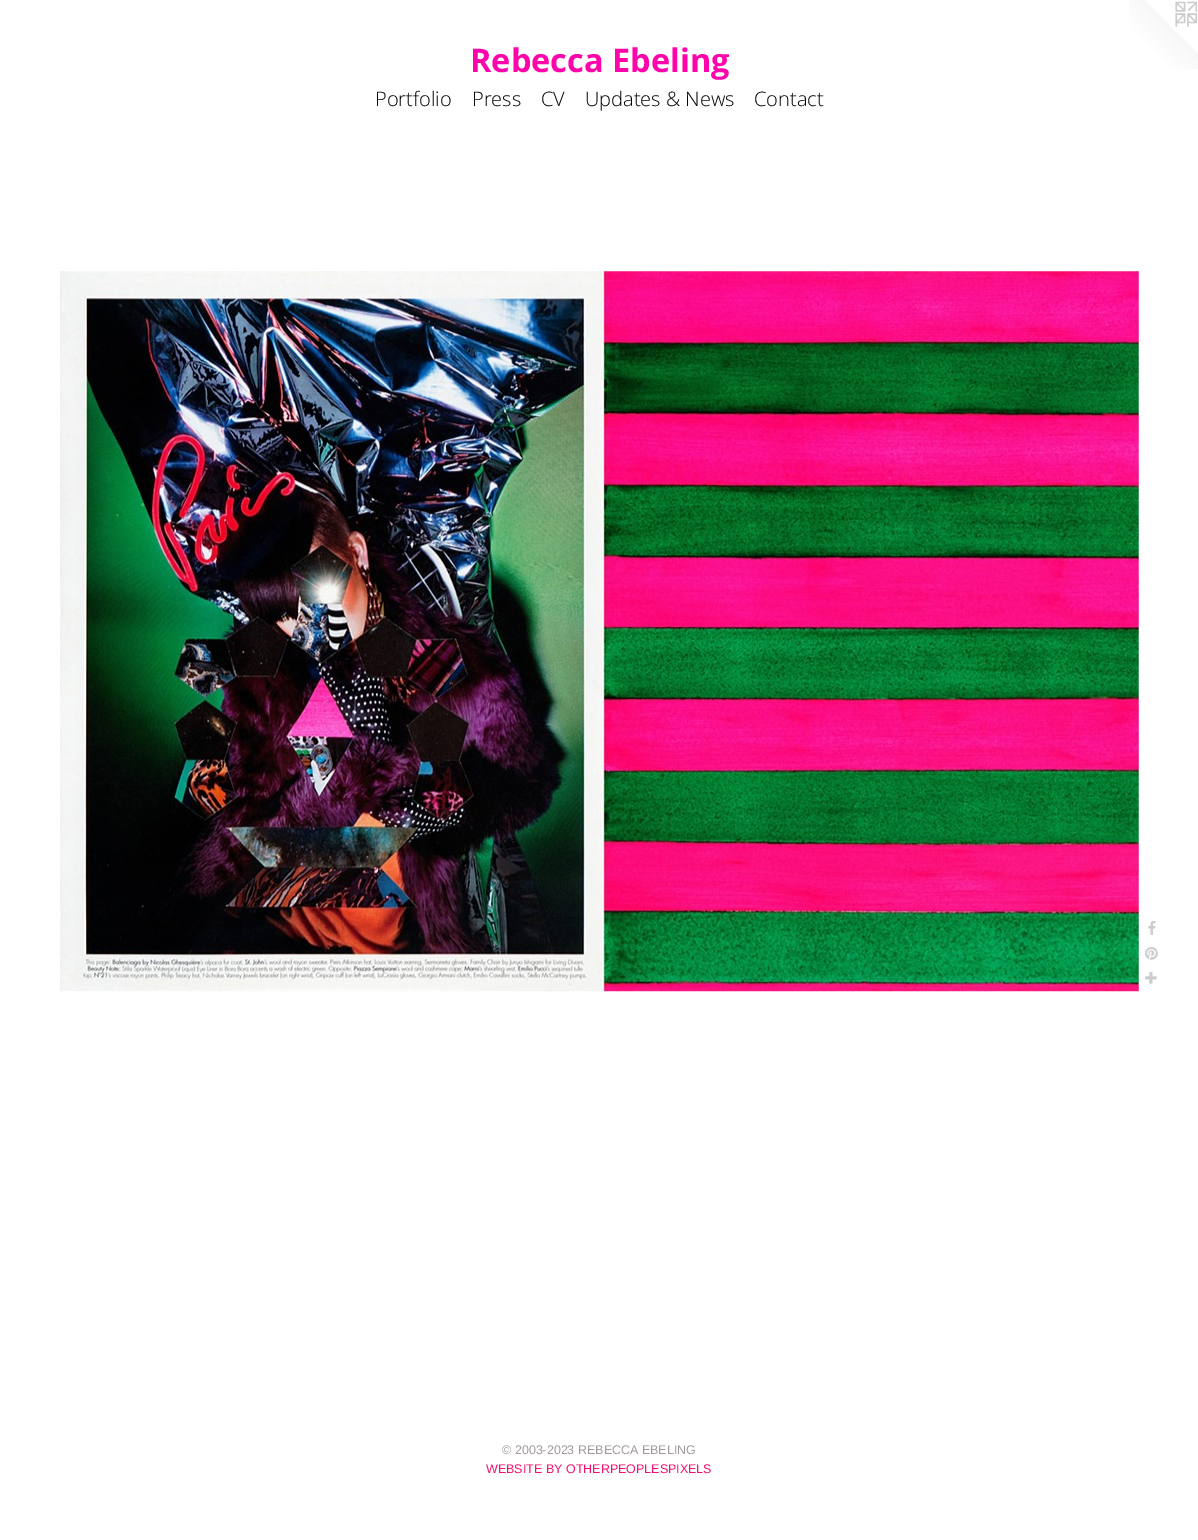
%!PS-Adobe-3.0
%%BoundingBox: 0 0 1198 1540
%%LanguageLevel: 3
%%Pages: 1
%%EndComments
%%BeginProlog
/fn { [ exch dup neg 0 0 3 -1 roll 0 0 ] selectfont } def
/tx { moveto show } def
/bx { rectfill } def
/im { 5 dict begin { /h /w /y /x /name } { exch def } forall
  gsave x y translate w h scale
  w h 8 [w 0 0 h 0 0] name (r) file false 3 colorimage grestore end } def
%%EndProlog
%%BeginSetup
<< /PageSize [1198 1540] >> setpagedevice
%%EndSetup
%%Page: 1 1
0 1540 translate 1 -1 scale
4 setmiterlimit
1 setgray
0 0 1198 1540 bx
/OpenSans-Bold 32.5 fn
1 0.016 0.671 setrgbcolor
(Rebecca Ebeling) 470 72 tx
(image0.raw) 1129 0 69 69 im
/OpenSans-Light 20 fn
0.016 setgray
(Portfolio) 375 106 tx
(Press) 472 106 tx
(CV) 541 106 tx
(Updates & News) 585 106 tx
(Contact) 754 106 tx
(image1.raw) 60 271 1079 721 im
(image2.raw) 1148 921 8 14 im
(image3.raw) 1145 947 13 13 im
(image4.raw) 1145 972 12 12 im
/LiberationSans-Regular 12.5 fn
0.635 0.604 0.604 setrgbcolor
(© 2003-2023 REBECCA EBELING) 502 1454 tx
0.961 0.059 0.431 setrgbcolor
(WEBSITE BY OTHERPEOPLESPIXELS) 486 1473 tx
showpage
%%EOF
